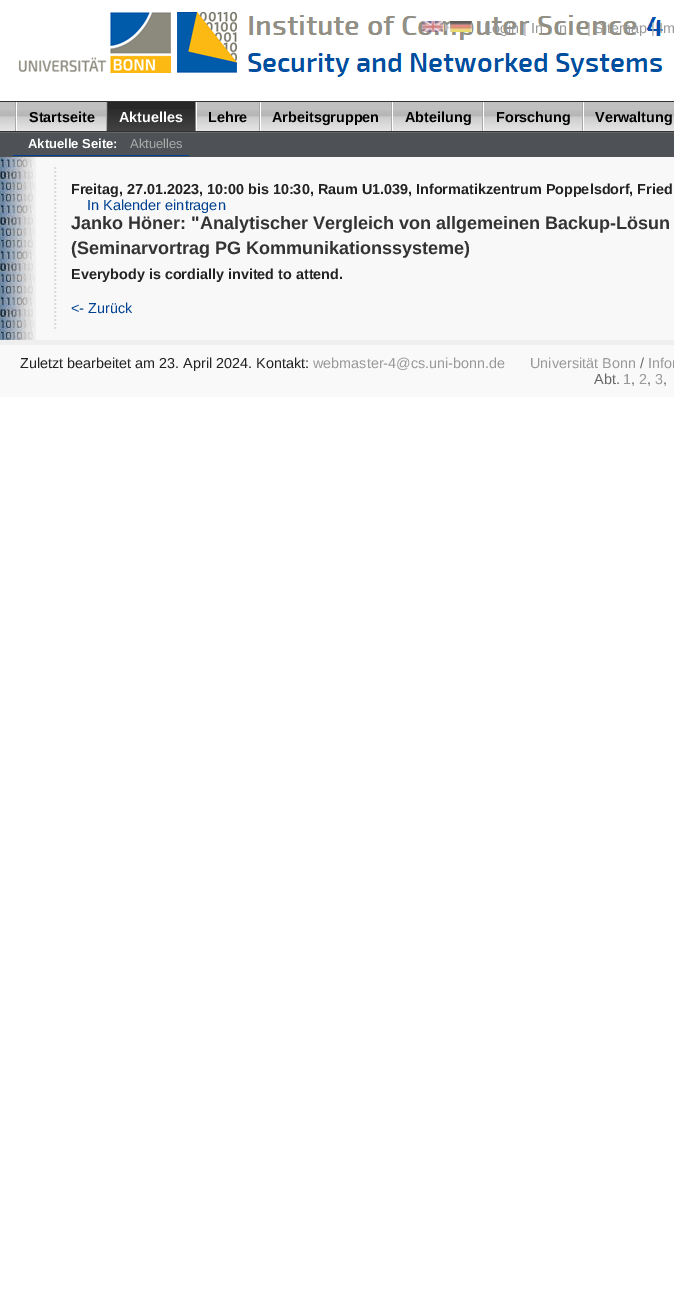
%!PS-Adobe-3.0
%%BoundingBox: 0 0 674 1297
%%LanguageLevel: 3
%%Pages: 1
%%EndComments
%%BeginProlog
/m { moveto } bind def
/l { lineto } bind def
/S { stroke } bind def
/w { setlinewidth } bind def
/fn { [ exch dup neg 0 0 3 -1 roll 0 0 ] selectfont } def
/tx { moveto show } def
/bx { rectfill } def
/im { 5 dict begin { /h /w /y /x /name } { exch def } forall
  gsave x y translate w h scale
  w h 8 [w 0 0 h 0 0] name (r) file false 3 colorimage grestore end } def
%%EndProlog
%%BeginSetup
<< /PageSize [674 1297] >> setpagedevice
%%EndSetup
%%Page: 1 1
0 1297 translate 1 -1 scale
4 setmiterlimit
1 setgray
0 0 674 1297 bx
(image0.raw) 18 12 645 65 im
(image1.raw) 422 21 21 11 im
(image2.raw) 444 23 6 9 im
(image3.raw) 450 21 22 11 im
/LiberationSans-Regular 14.4 fn
0.6 setgray
(Login) 484 33 tx
0.667 setgray
(|) 523 33 tx
0.6 setgray
(In) 531 33 tx
(n) 559 33 tx
0.667 setgray
(|) 587 33 tx
0.6 setgray
(Sitemap) 594 33 tx
0.667 setgray
(|) 651 33 tx
0.6 setgray
(Im) 659 33 tx
0.753 setgray
0 102 674 8 bx
(image4.raw) 0 110 674 21 im
0.2 setgray
0 101 674 1 bx
0 131 674 1 bx
0.667 setgray
15 102 1 29 bx
106 102 1 29 bx
1 setgray
16 102 1 29 bx
/LiberationSans-Bold 14.4 fn
0 setgray
(Startseite) 29 122 tx
0.153 setgray
108 102 87 7 bx
(image5.raw) 108 109 87 22 im
0.533 setgray
195 102 1 29 bx
0.267 setgray
107 102 1 29 bx
1 setgray
(Aktuelles) 119 122 tx
0.667 setgray
259 102 1 29 bx
1 setgray
196 102 1 29 bx
0 setgray
(Lehre) 208 122 tx
0.667 setgray
391 102 1 29 bx
1 setgray
260 102 1 29 bx
0 setgray
(Arbeitsgruppen) 272 122 tx
0.667 setgray
482 102 1 29 bx
1 setgray
392 102 1 29 bx
0 setgray
(Abteilung) 405 122 tx
0.667 setgray
582 102 1 29 bx
1 setgray
483 102 1 29 bx
0 setgray
(Forschung) 496 122 tx
1 setgray
583 102 1 29 bx
0 setgray
(Verwaltung) 595 122 tx
0.306 0.318 0.333 setrgbcolor
0 133 674 24 bx
0.4 setgray
0 132 674 1 bx
0 0.255 0.569 setrgbcolor
13 155 176 1 bx
/LiberationSans-Bold 13 fn
1 setgray
(Aktuelle Seite:) 28 148 tx
/LiberationSans-Regular 13 fn
0.667 setgray
(Aktuelles) 130 148 tx
0.973 setgray
36 157 638 183 bx
(image6.raw) 0 157 36 183 im
0.867 setgray
2 w
[2 2] 0 setdash
55 167 m 55 330 l S
/LiberationSans-Bold 14.4 fn
0.133 setgray
(Freitag, 27.01.2023, 10:00 bis 10:30, Raum U1.039, Informatikzentrum Poppelsdorf, Fried) 71 194 tx
/LiberationSans-Regular 14.5 fn
0 0.259 0.569 setrgbcolor
(In Kalender eintragen) 87 210 tx
/LiberationSans-Bold 18 fn
0.2 setgray
(Janko Höner: "Analytischer Vergleich von allgemeinen Backup-Lösun) 71 229 tx
(\(Seminarvortrag PG Kommunikationssysteme\)) 71 254 tx
/LiberationSans-Bold 14.4 fn
0.133 setgray
(Everybody is cordially invited to attend.) 71 279 tx
/LiberationSans-Regular 14.4 fn
0 0.259 0.569 setrgbcolor
(<- Zurück) 71 313 tx
0.976 setgray
0 345 674 52 bx
0.937 setgray
0 340 674 5 bx
0.133 setgray
(Zuletzt bearbeitet am 23. April 2024. Kontakt:) 20 368 tx
0.6 setgray
(webmaster-4@cs.uni-bonn.de) 313 368 tx
(Universität Bonn) 530 368 tx
0.4 setgray
(/) 640 368 tx
0.6 setgray
(Infor) 648 368 tx
0.4 setgray
(Abt.) 594 384 tx
0.6 setgray
(1) 623 384 tx
0.4 setgray
(,) 631 384 tx
0.6 setgray
(2) 639 384 tx
0.4 setgray
(,) 647 384 tx
0.6 setgray
(3) 655 384 tx
0.4 setgray
(,) 663 384 tx
showpage
%%EOF
